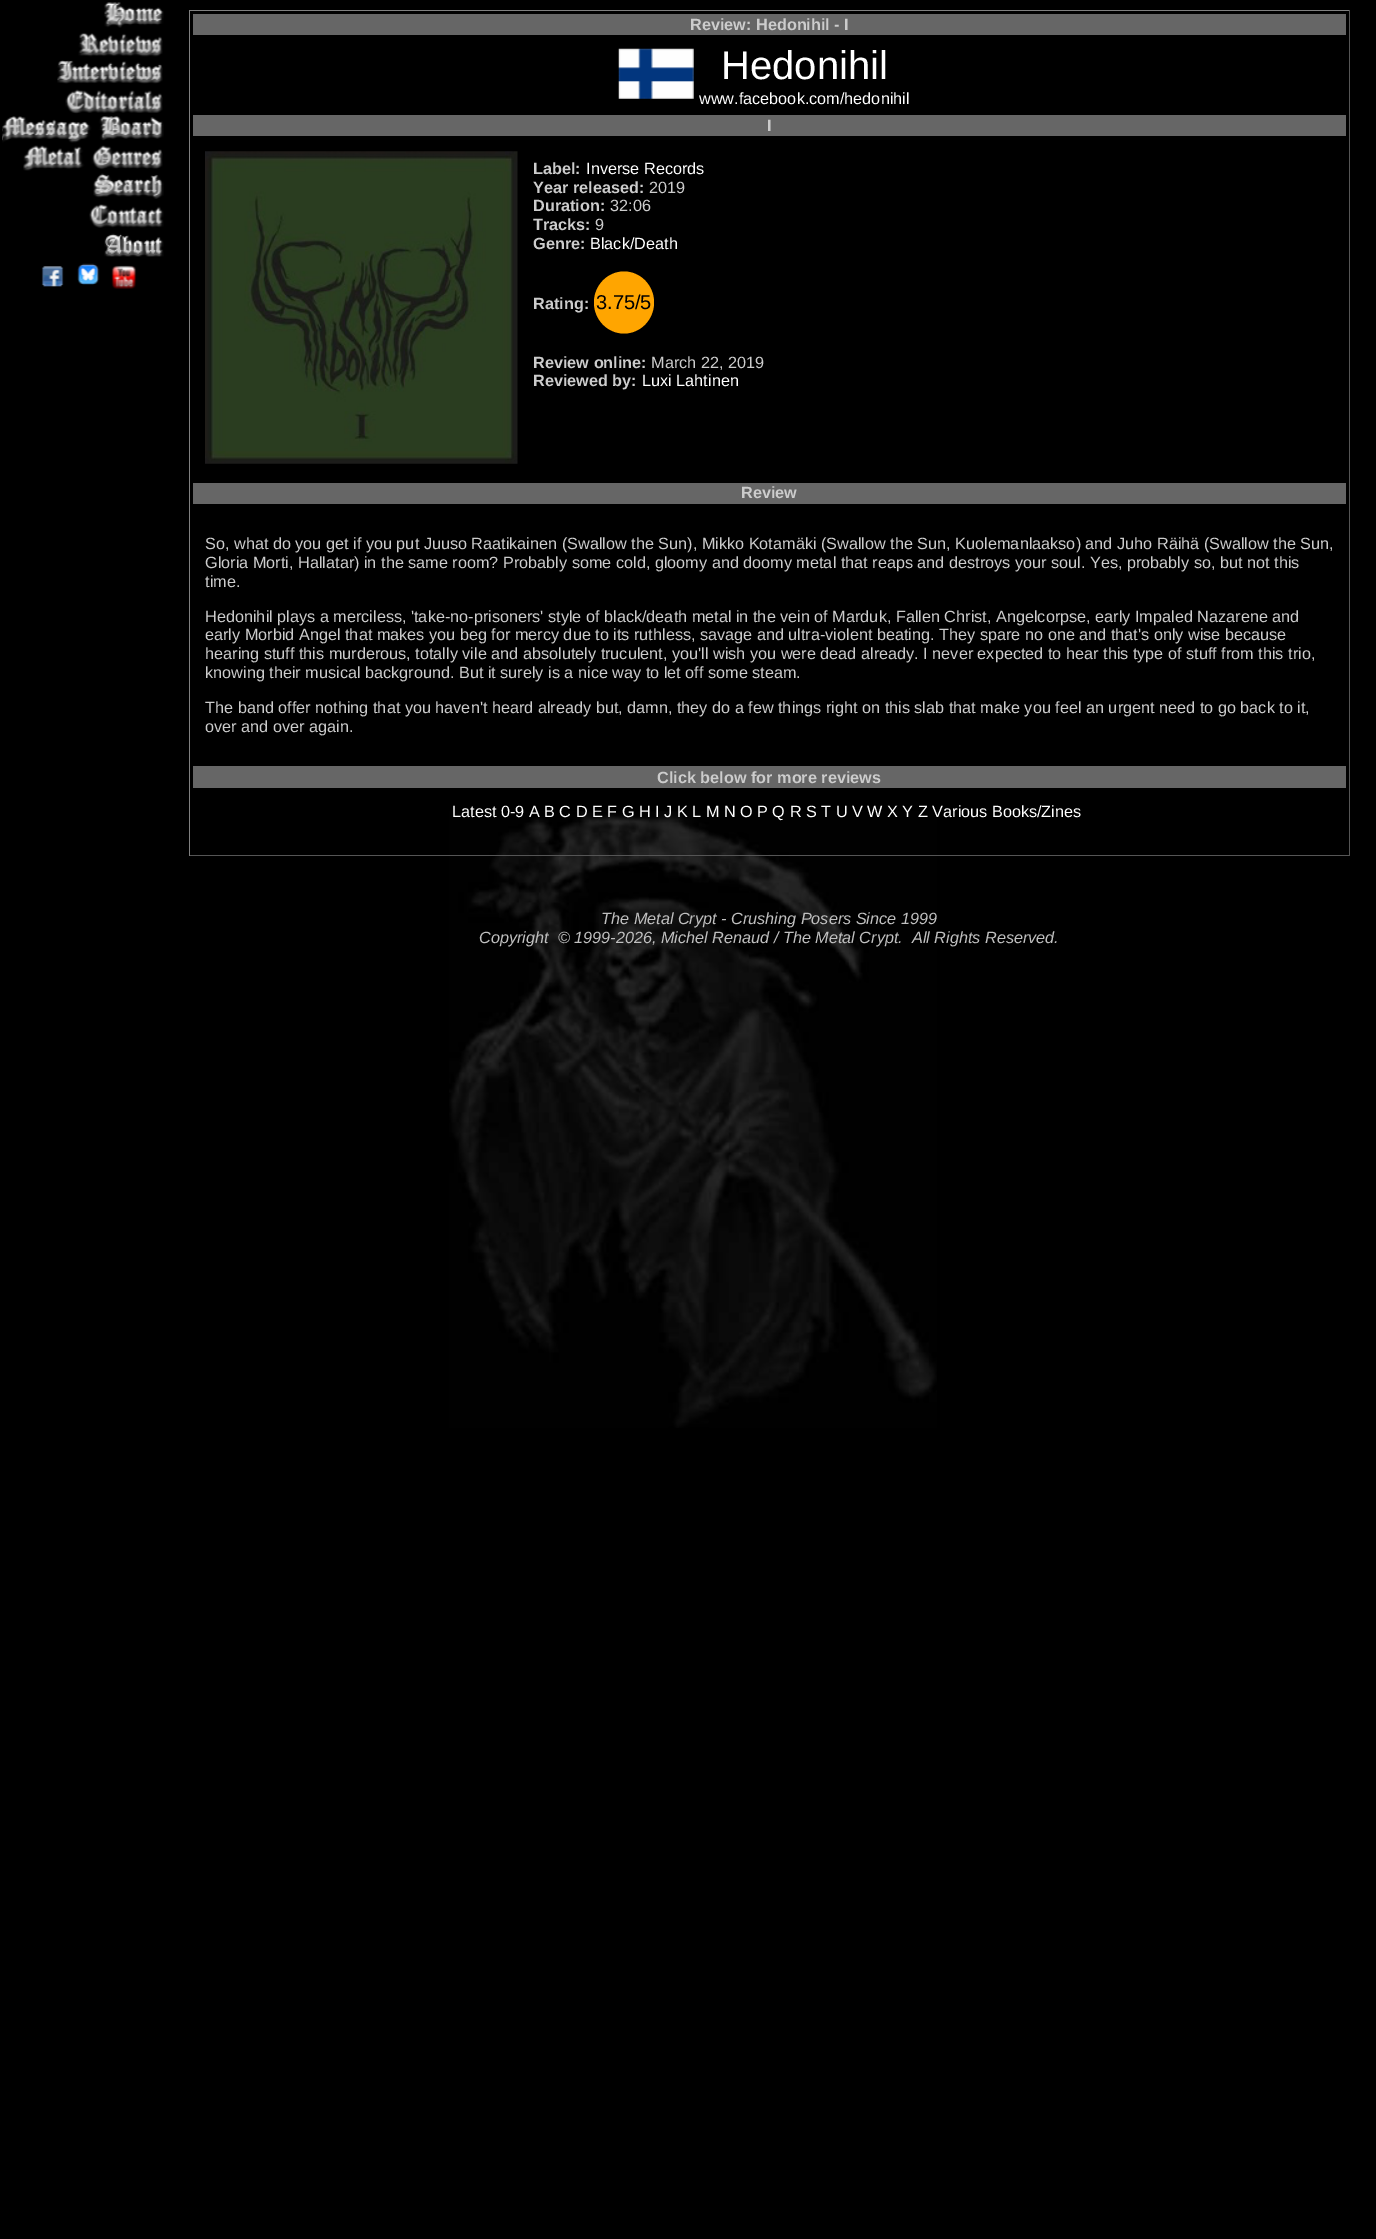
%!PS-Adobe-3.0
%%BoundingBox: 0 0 1376 2239
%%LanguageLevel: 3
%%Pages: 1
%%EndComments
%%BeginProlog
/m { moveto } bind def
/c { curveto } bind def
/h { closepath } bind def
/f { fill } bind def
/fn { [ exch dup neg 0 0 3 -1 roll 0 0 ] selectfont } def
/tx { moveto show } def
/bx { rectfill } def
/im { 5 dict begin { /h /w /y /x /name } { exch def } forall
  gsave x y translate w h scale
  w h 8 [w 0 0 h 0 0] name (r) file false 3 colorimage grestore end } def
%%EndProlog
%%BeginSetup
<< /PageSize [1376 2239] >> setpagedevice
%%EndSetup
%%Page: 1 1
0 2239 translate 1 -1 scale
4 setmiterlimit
0 setgray
0 0 1376 2239 bx
(image0.raw) 449 811 488 617 im
(image1.raw) 104 2 59 1 im
(image2.raw) 104 3 60 25 im
(image3.raw) 78 31 85 26 im
(image4.raw) 57 60 105 1 im
(image5.raw) 57 61 106 23 im
(image6.raw) 65 88 98 26 im
(image7.raw) 2 118 1 24 im
(image8.raw) 2 116 162 27 im
(image9.raw) 23 145 140 26 im
(image10.raw) 93 173 71 26 im
(image11.raw) 89 204 75 24 im
(image12.raw) 104 233 60 24 im
(image13.raw) 41 266 23 21 im
(image14.raw) 77 263 23 22 im
(image15.raw) 111 265 26 24 im
0.502 setgray
189 10 1161 1 bx
0.333 setgray
1349 10 1 846 bx
189 855 1161 1 bx
0.502 setgray
189 10 1 846 bx
0.4 setgray
193 14 1153 21 bx
/LiberationSans-Bold 16.25 fn
0.8 setgray
(Review: Hedonihil - I) 690 30 tx
(image16.raw) 618 48 76 51 im
/LiberationSans-Regular 40 fn
1 setgray
(Hedonihil) 721 79 tx
/LiberationSans-Regular 16.25 fn
(www.facebook.com/hedonihil) 699 104 tx
0.4 setgray
193 115 1153 21 bx
/LiberationSans-Bold 16.25 fn
0.8 setgray
(I) 767 131 tx
(image17.raw) 205 151 313 313 im
(Label:) 533 174 tx
/LiberationSans-Regular 16.25 fn
1 setgray
(Inverse Records) 586 174 tx
/LiberationSans-Bold 16.25 fn
0.8 setgray
(Year released:) 533 193 tx
/LiberationSans-Regular 16.25 fn
(2019) 649 193 tx
/LiberationSans-Bold 16.25 fn
(Duration:) 533 211 tx
/LiberationSans-Regular 16.25 fn
(32:06) 610 211 tx
/LiberationSans-Bold 16.25 fn
(Tracks:) 533 230 tx
/LiberationSans-Regular 16.25 fn
(9) 595 230 tx
/LiberationSans-Bold 16.25 fn
(Genre:) 533 249 tx
/LiberationSans-Regular 16.25 fn
1 setgray
(Black/Death) 590 249 tx
/LiberationSans-Bold 16.25 fn
0.8 setgray
(Rating:) 533 309 tx
1 0.647 0 setrgbcolor
624 271.5 m 640.5 271.5 654 285.5 654 302.5 c 654 319.5 640.5 333.5 624 333.5 c 607.5 333.5 594 319.5 594 302.5 c 594 285.5 607.5 271.5 624 271.5 c h f
/LiberationSans-Regular 20 fn
0 setgray
(3.75/5) 596 309 tx
/LiberationSans-Bold 16.25 fn
0.8 setgray
(Review online:) 533 368 tx
/LiberationSans-Regular 16.25 fn
(March 22, 2019) 651 368 tx
/LiberationSans-Bold 16.25 fn
(Reviewed by:) 533 386 tx
/LiberationSans-Regular 16.25 fn
1 setgray
(Luxi Lahtinen) 642 386 tx
0.4 setgray
193 483 1153 21 bx
/LiberationSans-Bold 16.25 fn
0.8 setgray
(Review) 741 498 tx
/LiberationSans-Regular 16.25 fn
(So, what do you get if you put Juuso Raatikainen \(Swallow the Sun\), Mikko Kotamäki \(Swallow the Sun, Kuolemanlaakso\) and Juho Räihä \(Swallow the Sun,) 205 549 tx
(Gloria Morti, Hallatar\) in the same room? Probably some cold, gloomy and doomy metal that reaps and destroys your soul. Yes, probably so, but not this) 205 568 tx
(time.) 205 587 tx
(Hedonihil plays a merciless, 'take-no-prisoners' style of black/death metal in the vein of Marduk, Fallen Christ, Angelcorpse, early Impaled Nazarene and) 205 622 tx
(early Morbid Angel that makes you beg for mercy due to its ruthless, savage and ultra-violent beating. They spare no one and that's only wise because) 205 640 tx
(hearing stuff this murderous, totally vile and absolutely truculent, you'll wish you were dead already. I never expected to hear this type of stuff from this trio,) 205 659 tx
(knowing their musical background. But it surely is a nice way to let off some steam.) 205 678 tx
(The band offer nothing that you haven't heard already but, damn, they do a few things right on this slab that make you feel an urgent need to go back to it,) 205 713 tx
(over and over again.) 205 732 tx
0.4 setgray
193 766 1153 22 bx
/LiberationSans-Bold 16.25 fn
0.8 setgray
(Click below for more reviews) 657 783 tx
/LiberationSans-Regular 16.25 fn
1 setgray
(Latest 0-9 A B C D E F G H I J K L M N O P Q R S T U V W X Y Z Various Books/Zines) 452 817 tx
/LiberationSans-Italic 16.25 fn
0.753 setgray
(The Metal Crypt - Crushing Posers Since 1999) 601 924 tx
(Copyright  © 1999-2026, Michel Renaud / The Metal Crypt.  All Rights Reserved.) 479 943 tx
showpage
%%EOF
